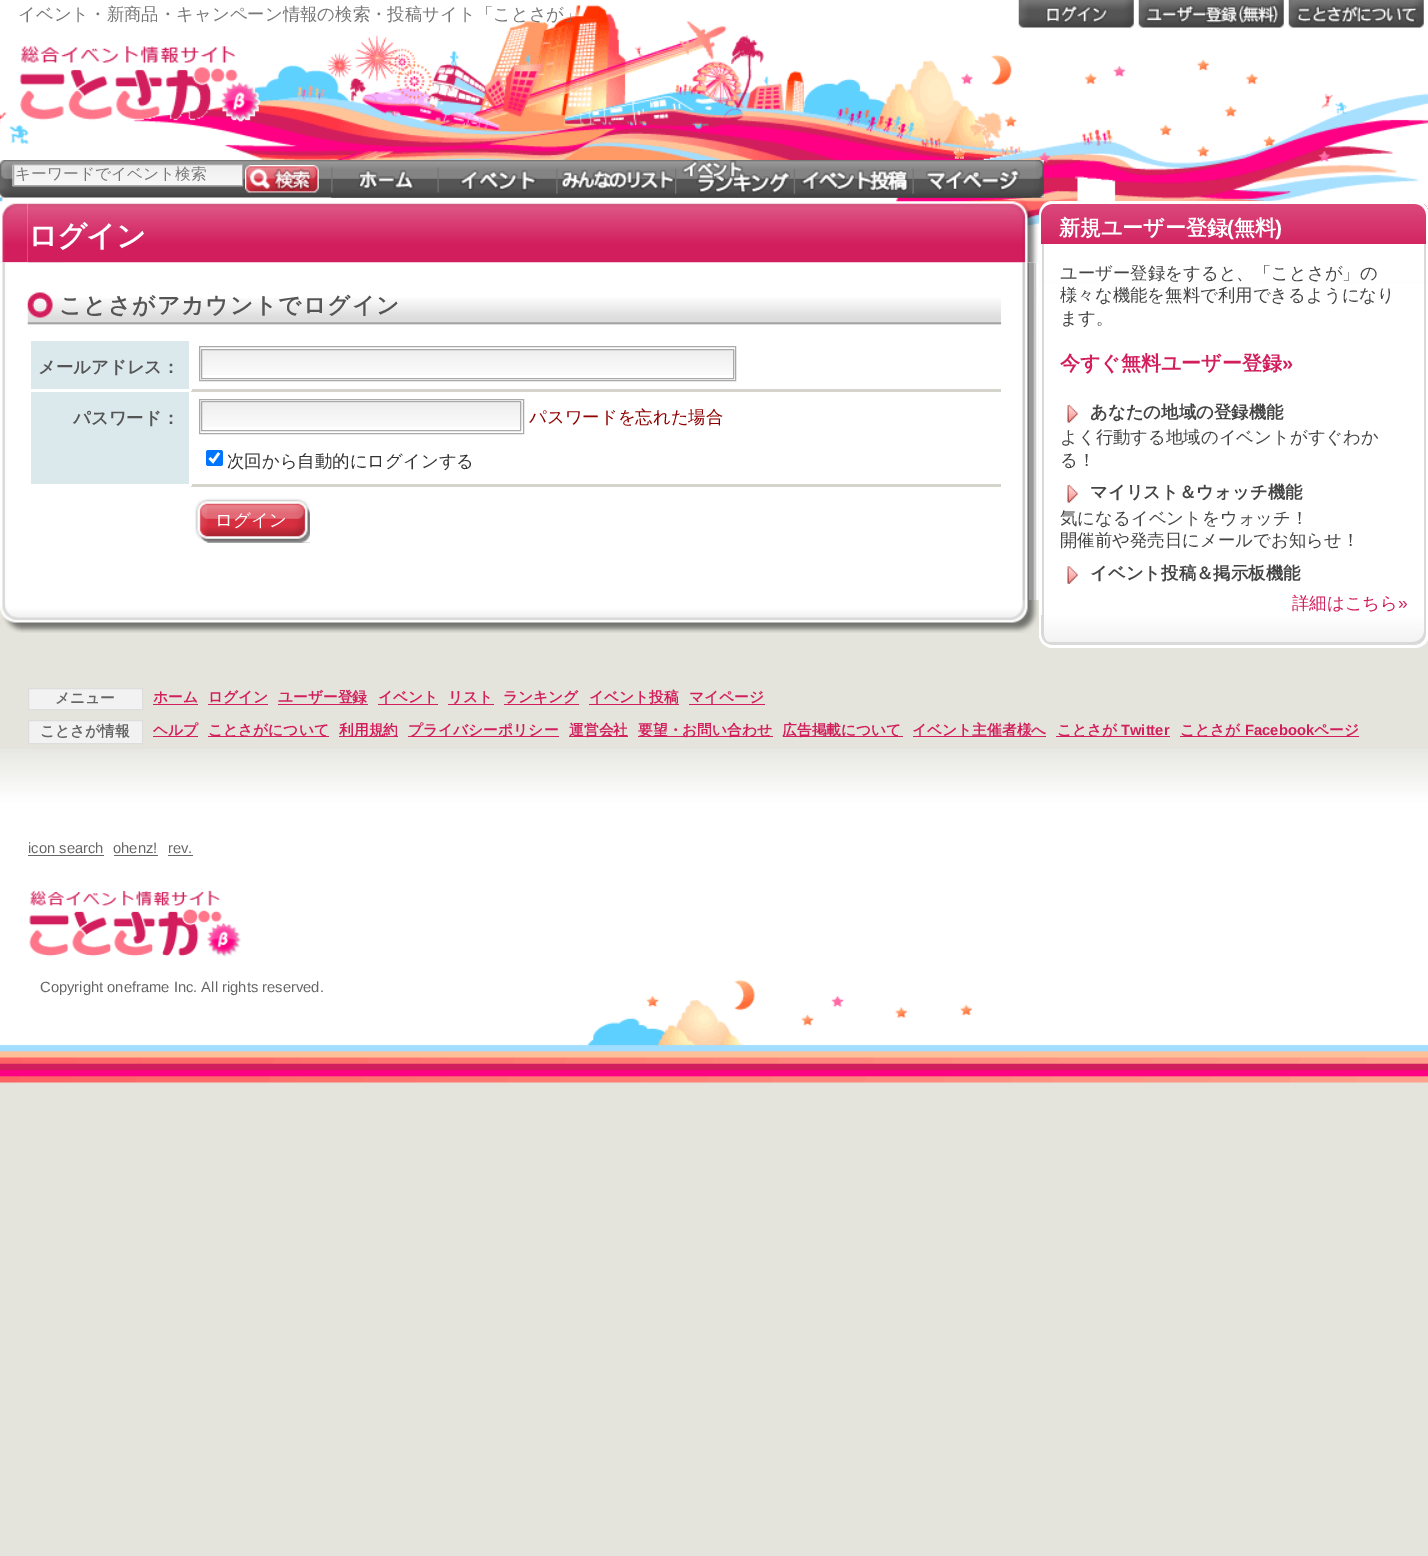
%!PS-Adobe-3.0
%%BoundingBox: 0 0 1428 1556
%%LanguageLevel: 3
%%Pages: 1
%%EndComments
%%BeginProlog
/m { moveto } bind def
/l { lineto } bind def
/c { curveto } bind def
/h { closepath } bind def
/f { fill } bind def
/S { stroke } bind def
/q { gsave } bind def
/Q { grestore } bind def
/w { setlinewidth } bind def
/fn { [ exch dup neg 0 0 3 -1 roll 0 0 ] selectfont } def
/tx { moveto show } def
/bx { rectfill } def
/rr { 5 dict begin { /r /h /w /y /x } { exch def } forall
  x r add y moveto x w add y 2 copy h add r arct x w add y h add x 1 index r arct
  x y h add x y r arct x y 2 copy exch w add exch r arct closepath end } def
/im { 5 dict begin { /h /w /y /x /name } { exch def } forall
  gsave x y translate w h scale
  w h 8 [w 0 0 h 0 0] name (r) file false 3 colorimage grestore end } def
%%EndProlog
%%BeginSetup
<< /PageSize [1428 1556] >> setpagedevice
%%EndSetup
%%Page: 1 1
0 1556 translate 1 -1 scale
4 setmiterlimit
0.894 0.894 0.863 setrgbcolor
0 0 1428 1556 bx
(image0.raw) 0 0 1428 335 im
(image1.raw) 133 4 898 156 im
/WenQuanYiZenHei-Medium 17.4 fn
0.467 setgray
(イベント・新商品・キャンペーン情報の検索・投稿サイト「ことさが」) 18 20 tx
(image2.raw) 1018 0 116 28 im
(image3.raw) 1138 0 146 28 im
(image4.raw) 1288 0 136 28 im
(image7.raw) 0 112 64 151 im
(image5.raw) 19 46 242 76 im
(image6.raw) 894 55 534 172 im
(image8.raw) 0 160 1044 38 im
(image9.raw) 12 165 231 22 im
0.667 setgray
13.5 164.5 229 21 rectstroke
/WenQuanYiZenHei-Medium 15.7 fn
0.467 setgray
(キーワードでイベント検索) 15 179 tx
(image10.raw) 245 165 74 28 im
(image11.raw) 331 160 713 38 im
(image12.raw) 331 167 107 31 im
(image13.raw) 437 167 120 31 im
(image14.raw) 556 169 119 29 im
(image15.raw) 675 160 119 38 im
(image16.raw) 793 169 120 29 im
(image17.raw) 912 168 120 30 im
(image18.raw) 0 201 28 62 im
(image19.raw) 27 201 1011 62 im
/WenQuanYiZenHei-Bold 29.5 fn
1 setgray
28 246 m -1 0 (ログイン) ashow
(image20.raw) 0 262 1039 338 im
(image21.raw) 0 262 28 338 im
(image22.raw) 27 298 975 27 im
(image23.raw) 27 292 26 26 im
/WenQuanYiZenHei-Bold 22.6 fn
0.333 setgray
59 313 m 1.25 0 (ことさがアカウントでログイン) ashow
0.859 0.91 0.925 setrgbcolor
31 341 158 48 bx
0.831 0.831 0.8 setrgbcolor
189 389 812 3 bx
1 setgray
189 389 3 2 bx
189 391 2 1 bx
/WenQuanYiZenHei-Bold 17.4 fn
0.333 setgray
(メールアドレス：) 38 373 tx
(image24.raw) 198 350 539 25 im
0.667 setgray
199.5 346.5 536 34 rectstroke
201.5 349.5 532 29 rectstroke
0.859 0.91 0.925 setrgbcolor
31 392 158 92 bx
0.831 0.831 0.8 setrgbcolor
189 484 812 3 bx
1 setgray
189 484 3 2 bx
189 486 2 1 bx
0.333 setgray
(パスワード：) 73 424 tx
(image25.raw) 198 402 325 25 im
0.667 setgray
199.5 399.5 324 34 rectstroke
201.5 401.5 319 29 rectstroke
/WenQuanYiZenHei-Medium 17.4 fn
0.565 0 0 setrgbcolor
(パスワードを忘れた場合) 529 423 tx
0 0.459 1 setrgbcolor
206 450 17 16 2.5 rr f
1 setgray
2.6 w
209.5 458 m 213 461.5 l 219 453 l S
0.2 setgray
(次回から自動的にログインする) 227 467 tx
(image26.raw) 195 498 115 45 im
(image27.raw) 207 499 103 44 im
/WenQuanYiZenHei-Medium 17.5 fn
1 setgray
(ログイン) 215 526 tx
(image28.raw) 21 600 1017 33 im
(image29.raw) 0 600 21 33 im
q
1053 201 m 1415 201 l 1422.5 201 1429 207.5 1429 215 c 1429 244 l 1039 244 l 1039 215 l 1039 207.5 1045.5 201 1053 201 c h clip newpath
q 1039 204 m 1428 204 l 1428 244 l 1039 244 l h clip newpath
<< /ShadingType 2 /ColorSpace /DeviceRGB /Coords [1234 204 1234 244] /Extend [true true] /Function << /FunctionType 2 /Domain [0 1] /C0 [0.859 0.286 0.482] /C1 [0.827 0.145 0.38] /N 1 >> >> shfill Q
Q
1052 201 m 1415 201 l 1423 201 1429 207 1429 215 c 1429 244 l 1039 244 l 1039 215 l 1039 207 1045 201 1052 201 c h 1052 204 m 1415 204 l 1421 204 1426 209 1426 215 c 1426 244 l 1041 244 l 1041 215 l 1041 209 1046 204 1052 204 c h eofill
/WenQuanYiZenHei-Bold 21 fn
(新規ユーザー登録) 1059 235 tx
/LiberationSans-Bold 21 fn
(\() 1227 235 tx
/WenQuanYiZenHei-Bold 21 fn
(無料) 1234 235 tx
/LiberationSans-Bold 21 fn
(\)) 1275 235 tx
1044 284 380 331 bx
0.851 setgray
1424 244 2 371 bx
1042 244 2 371 bx
1 setgray
1426 284 2 331 bx
1039 284 3 331 bx
/WenQuanYiZenHei-Medium 17.4 fn
0.267 setgray
(ユーザー登録をすると、「ことさが」の) 1060 279 tx
(様々な機能を無料で利用できるようになり) 1060 301 tx
(ます。) 1060 324 tx
/WenQuanYiZenHei-Bold 20 fn
0.824 0.118 0.361 setrgbcolor
(今すぐ無料ユーザー登録) 1060 370 tx
/LiberationSans-Bold 20 fn
(») 1282 370 tx
(image30.raw) 1067 404 11 19 im
/WenQuanYiZenHei-Bold 17.4 fn
0.267 setgray
(あなたの地域の登録機能) 1090 418 tx
/WenQuanYiZenHei-Medium 17.4 fn
(よく行動する地域のイベントがすぐわか) 1060 443 tx
(る！) 1060 466 tx
(image30.raw) 1067 484 11 19 im
/WenQuanYiZenHei-Bold 17.4 fn
(マイリスト＆ウォッチ機能) 1090 498 tx
/WenQuanYiZenHei-Medium 17.4 fn
(気になるイベントをウォッチ！) 1060 524 tx
(開催前や発売日にメールでお知らせ！) 1060 546 tx
(image31.raw) 1067 566 11 18 im
/WenQuanYiZenHei-Bold 17.4 fn
(イベント投稿＆掲示板機能) 1090 579 tx
/WenQuanYiZenHei-Medium 17.4 fn
0.824 0.118 0.361 setrgbcolor
(詳細はこちら) 1292 609 tx
/LiberationSans-Regular 17.4 fn
(») 1398 609 tx
q
1039 615 m 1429 615 l 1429 634 l 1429 641.5 1422.5 648 1415 648 c 1053 648 l 1045.5 648 1039 641.5 1039 634 c h clip newpath
q 1039 615 m 1428 615 l 1428 645 l 1039 645 l h clip newpath
<< /ShadingType 2 /ColorSpace /DeviceRGB /Coords [1234 615 1234 645] /Extend [true true] /Function << /FunctionType 2 /Domain [0 1] /C0 [1 1 1] /C1 [0.949 0.949 0.949] /N 1 >> >> shfill Q
Q
0.851 setgray
1042 638 m 1044 642 1047 645 1052 645 c 1415 645 l 1421 645 1426 640 1426 634 c 1426 615 l 1424 615 l 1424 631 l 1424 637 1419 642 1412 642 c 1050 642 l 1047 642 1044 641 1042 638 c h f
1041 615 m 1041 634 l 1041 640 1046 645 1052 645 c 1055 645 l 1049 645 1044 640 1044 634 c 1044 615 l h f
1 setgray
1039 615 m 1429 615 l 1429 634 l 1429 641 1423 648 1415 648 c 1052 648 l 1045 648 1039 641 1039 634 c h 1041 615 m 1426 615 l 1426 634 l 1426 640 1421 645 1415 645 c 1052 645 l 1046 645 1041 640 1041 634 c h eofill
(image32.raw) 0 749 1428 334 im
0.949 setgray
28.5 688.5 m 142.5 688.5 l 142.5 709.5 l 28.5 709.5 l h q f Q
0.867 setgray
1 w
S
/WenQuanYiZenHei-Bold 14.75 fn
0.4 setgray
(メニュー) 55 703 tx
0.824 0.118 0.361 setrgbcolor
(ホーム) 153 702 tx
153 704 45 1 bx
(ログイン) 208 702 tx
208 704 60 1 bx
278 704 90 1 bx
(ユーザー登録) 278 702 tx
(イベント) 378 702 tx
378 704 60 1 bx
448 704 46 1 bx
(リスト) 448 702 tx
(ランキング) 503 702 tx
504 704 75 1 bx
589 704 90 1 bx
(イベント投稿) 589 702 tx
(マイページ) 689 702 tx
689 704 76 1 bx
0.949 setgray
28.5 720.5 m 142.5 720.5 l 142.5 743.5 l 28.5 743.5 l h q f Q
0.867 setgray
S
0.4 setgray
(ことさが情報) 40 736 tx
0.824 0.118 0.361 setrgbcolor
153 736 45 1 bx
(ヘルプ) 153 735 tx
208 736 121 1 bx
(ことさがについて) 208 735 tx
339 736 59 1 bx
(利用規約) 339 735 tx
408 736 151 1 bx
(プライバシーポリシー) 408 735 tx
569 736 59 1 bx
(運営会社) 569 735 tx
638 736 135 1 bx
(要望・お問い合わせ) 638 735 tx
783 736 120 1 bx
(広告掲載について) 782 735 tx
913 736 133 1 bx
(イベント主催者様へ) 912 735 tx
1056 736 114 1 bx
(ことさが) 1057 735 tx
/LiberationSans-Bold 14.75 fn
(Twitter) 1121 735 tx
1180 736 179 1 bx
/WenQuanYiZenHei-Bold 14.75 fn
(ことさが) 1180 735 tx
/LiberationSans-Bold 14.75 fn
(Facebook) 1245 735 tx
/WenQuanYiZenHei-Bold 14.75 fn
(ページ) 1314 735 tx
/LiberationSans-Regular 14.75 fn
0.4 setgray
(icon search) 28 853 tx
28 855 76 1 bx
(ohenz!) 113 853 tx
114 855 44 1 bx
(rev.) 168 853 tx
168 855 25 1 bx
(image33.raw) 29 890 212 67 im
(Copyright oneframe Inc. All rights reserved.) 40 992 tx
showpage
%%EOF
